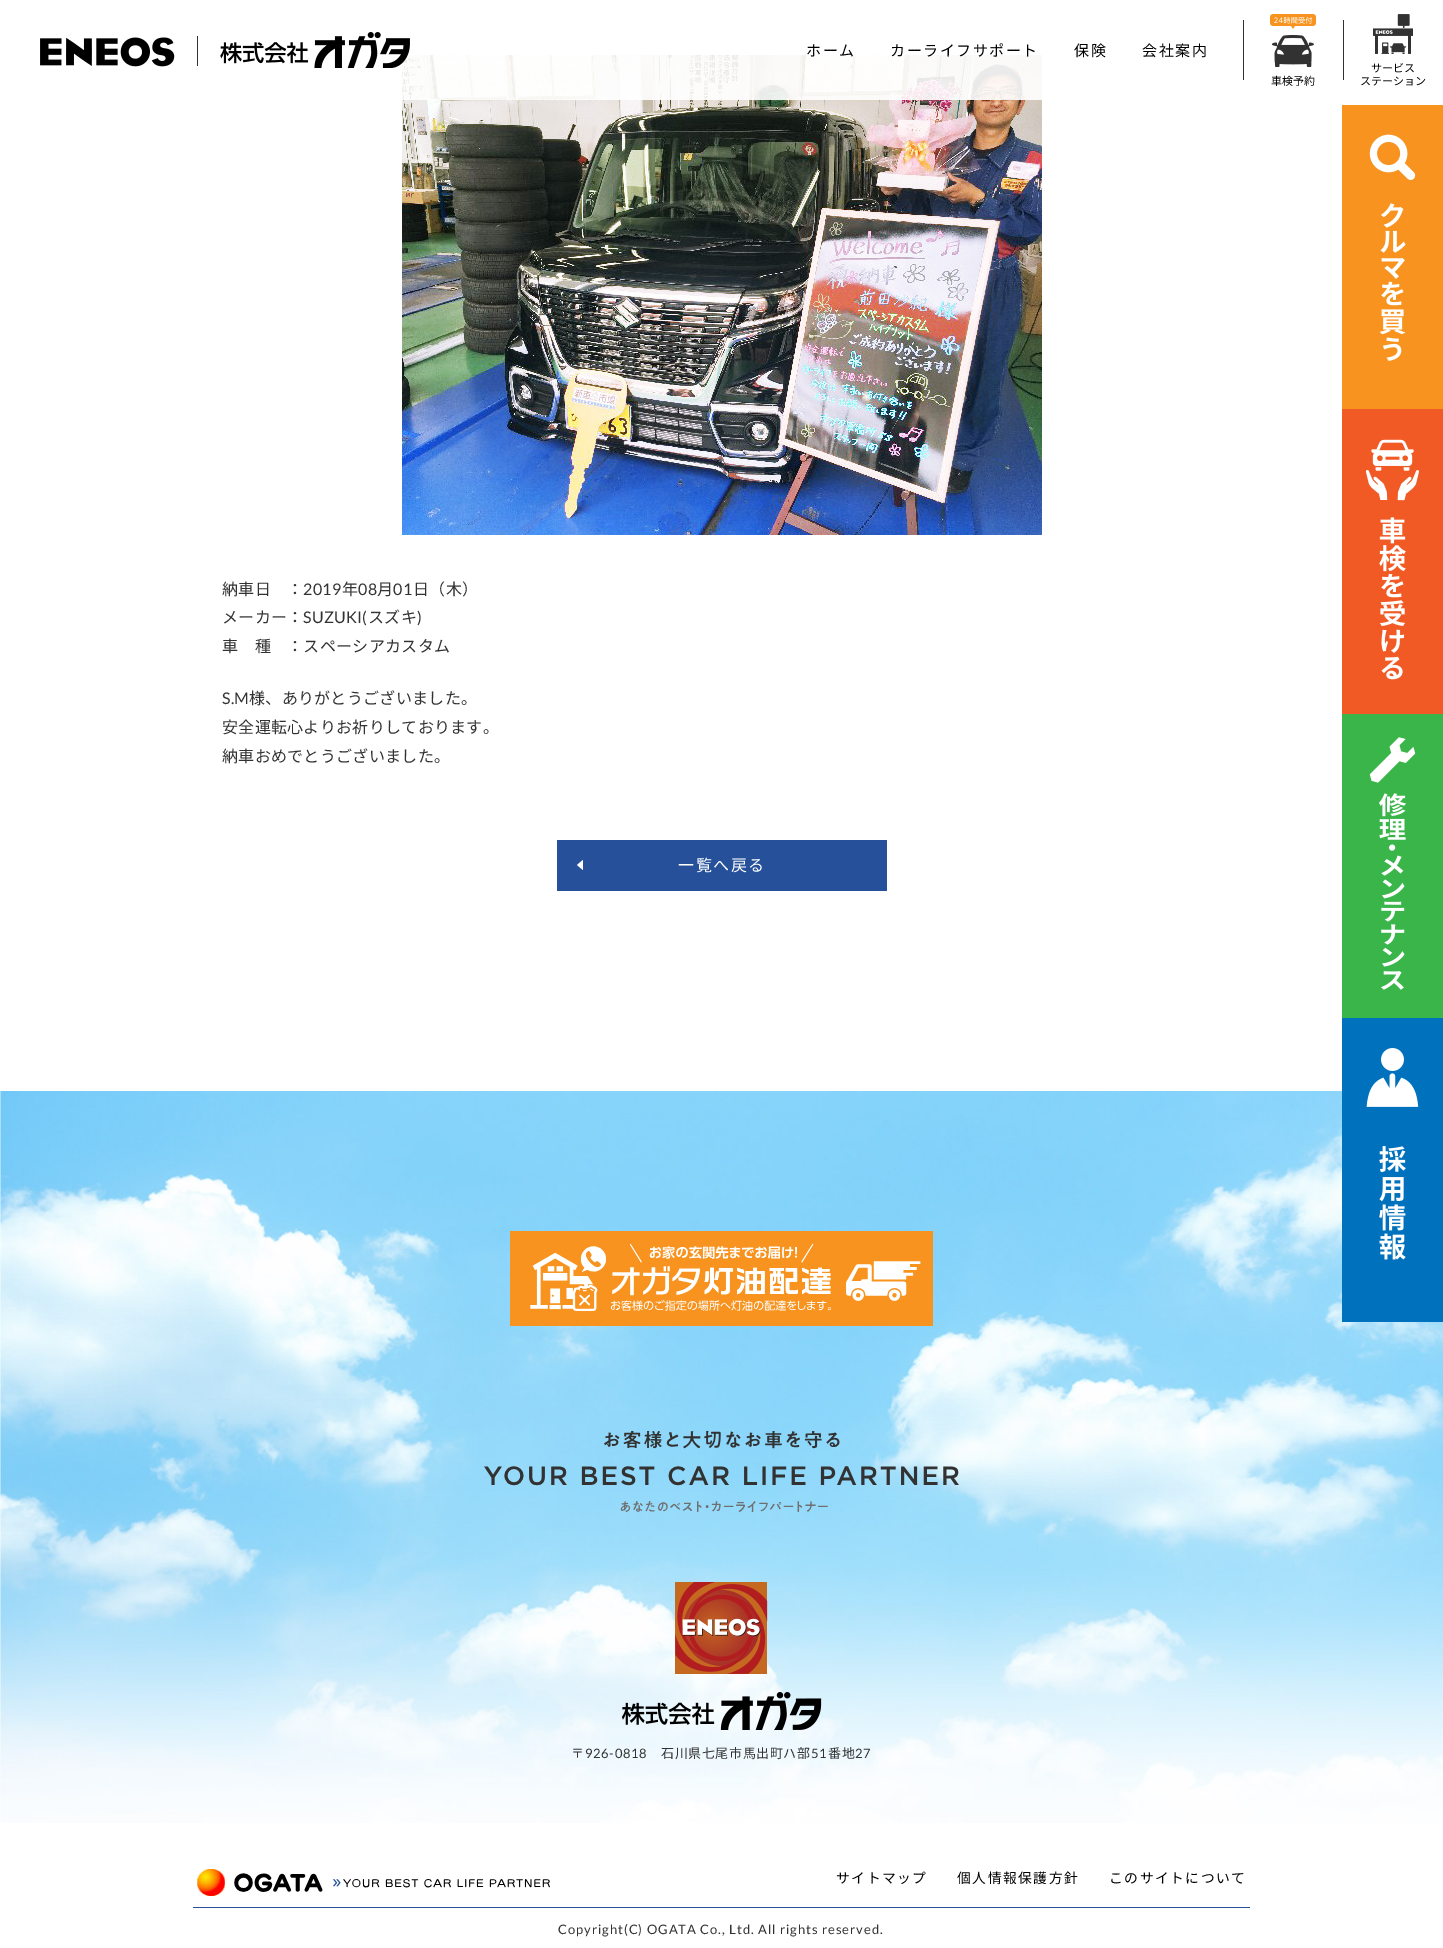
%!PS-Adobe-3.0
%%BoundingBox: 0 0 1443 1948
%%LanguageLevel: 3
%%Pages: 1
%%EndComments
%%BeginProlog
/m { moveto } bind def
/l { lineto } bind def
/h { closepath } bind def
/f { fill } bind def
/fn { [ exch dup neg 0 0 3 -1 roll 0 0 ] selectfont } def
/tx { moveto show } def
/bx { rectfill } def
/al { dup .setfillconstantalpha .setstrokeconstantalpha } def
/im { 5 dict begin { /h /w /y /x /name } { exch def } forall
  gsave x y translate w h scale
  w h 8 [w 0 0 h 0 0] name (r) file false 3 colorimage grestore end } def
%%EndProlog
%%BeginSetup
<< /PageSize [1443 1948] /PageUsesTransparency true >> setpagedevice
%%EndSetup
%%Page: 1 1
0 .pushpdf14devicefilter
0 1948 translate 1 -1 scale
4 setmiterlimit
1 setgray
0 0 1443 1948 bx
(image3.raw) 402 55 640 480 im
0.9 al
402 55 640 45 bx
1 al
(image0.raw) 40 32 370 36 im
/NotoSansJP-Regular 15 fn
0 setgray
806 56 m 1.5 0 (ホーム) ashow
890 56 m 1.5 0 (カーライフサポート) ashow
1074 56 m 1.5 0 (保険) ashow
1142 56 m 1.5 0 (会社案内) ashow
0.196 setgray
1243 20 1 60 bx
(image1.raw) 1270 14 46 53 im
/NotoSansJP-Regular 11 fn
0 setgray
(車検予約) 1271 85 tx
0.196 setgray
1343 20 1 60 bx
(image2.raw) 1373 14 40 40 im
0 setgray
(サービス) 1371 72 tx
(ステーション) 1360 85 tx
/NotoSansJP-Regular 16 fn
0.196 setgray
222 595 m 0.3 0 (納車日　：) ashow
/Lato-Regular 16 fn
303 595 m 0.3 0 (2019) ashow
/NotoSansJP-Regular 16 fn
342 595 m 0.3 0 (年) ashow
/Lato-Regular 16 fn
358 595 m 0.3 0 (08) ashow
/NotoSansJP-Regular 16 fn
377 595 m 0.3 0 (月) ashow
/Lato-Regular 16 fn
393 595 m 0.3 0 (01) ashow
/NotoSansJP-Regular 16 fn
413 595 m 0.3 0 (日（木）) ashow
222 623 m 0.3 0 (メーカー：) ashow
/Lato-Regular 16 fn
303 623 m 0.3 0 (SUZUKI\() ashow
/NotoSansJP-Regular 16 fn
368 623 m 0.3 0 (スズキ) ashow
/Lato-Regular 16 fn
417 623 m 0.3 0 (\)) ashow
/NotoSansJP-Regular 16 fn
222 652 m 0.3 0 (車　種　：スペーシアカスタム) ashow
/Lato-Regular 16 fn
222 704 m 0.3 0 (S.M) ashow
/NotoSansJP-Regular 16 fn
249 704 m 0.3 0 (様、ありがとうございました。) ashow
222 733 m 0.3 0 (安全運転心よりお祈りしております。) ashow
222 762 m 0.3 0 (納車おめでとうございました。) ashow
0.149 0.318 0.604 setrgbcolor
557 840 330 51 bx
1 setgray
583 860 m 583 870 l 577 865 l h f
678 871 m 1.5 0 (一覧へ戻る) ashow
0.969 0.576 0.118 setrgbcolor
1342 105 101 304 bx
(image4.raw) 1369 134 47 227 im
0.945 0.353 0.141 setrgbcolor
1342 409 101 305 bx
(image5.raw) 1365 439 54 241 im
0.224 0.71 0.29 setrgbcolor
1342 714 101 304 bx
(image6.raw) 1369 737 47 253 im
(image8.raw) 0 1091 1443 732 im
0 0.443 0.737 setrgbcolor
1342 1018 101 304 bx
(image7.raw) 1366 1048 53 212 im
(image9.raw) 510 1231 423 95 im
(image10.raw) 484 1431 475 81 im
(image11.raw) 675 1582 93 92 im
(image12.raw) 622 1692 200 38 im
/NotoSansJP-Regular 13 fn
0.196 setgray
571 1758 m 0.6 0 (〒) ashow
/Lato-Regular 13 fn
585 1758 m 0.6 0 (926-0818) ashow
/NotoSansJP-Regular 13 fn
661 1758 m 0.6 0 (石川県七尾市馬出町ハ部) ashow
/Lato-Regular 13 fn
811 1758 m 0.6 0 (51) ashow
/NotoSansJP-Regular 13 fn
828 1758 m 0.6 0 (番地) ashow
/Lato-Regular 13 fn
855 1758 m 0.6 0 (27) ashow
(image13.raw) 197 1869 353 27 im
/NotoSansJP-Regular 13.75 fn
0 setgray
836 1883 m 1.5 0 (サイトマップ) ashow
957 1883 m 1.5 0 (個人情報保護方針) ashow
1109 1883 m 1.5 0 (このサイトについて) ashow
0.149 0.318 0.604 setrgbcolor
193 1907 1057 1 bx
/Lato-Regular 13 fn
0.196 setgray
558 1934 m 0.95 0 (Copyright\(C\) OGATA Co., Ltd. All rights reserved.) ashow
.poppdf14devicefilter showpage
%%EOF
